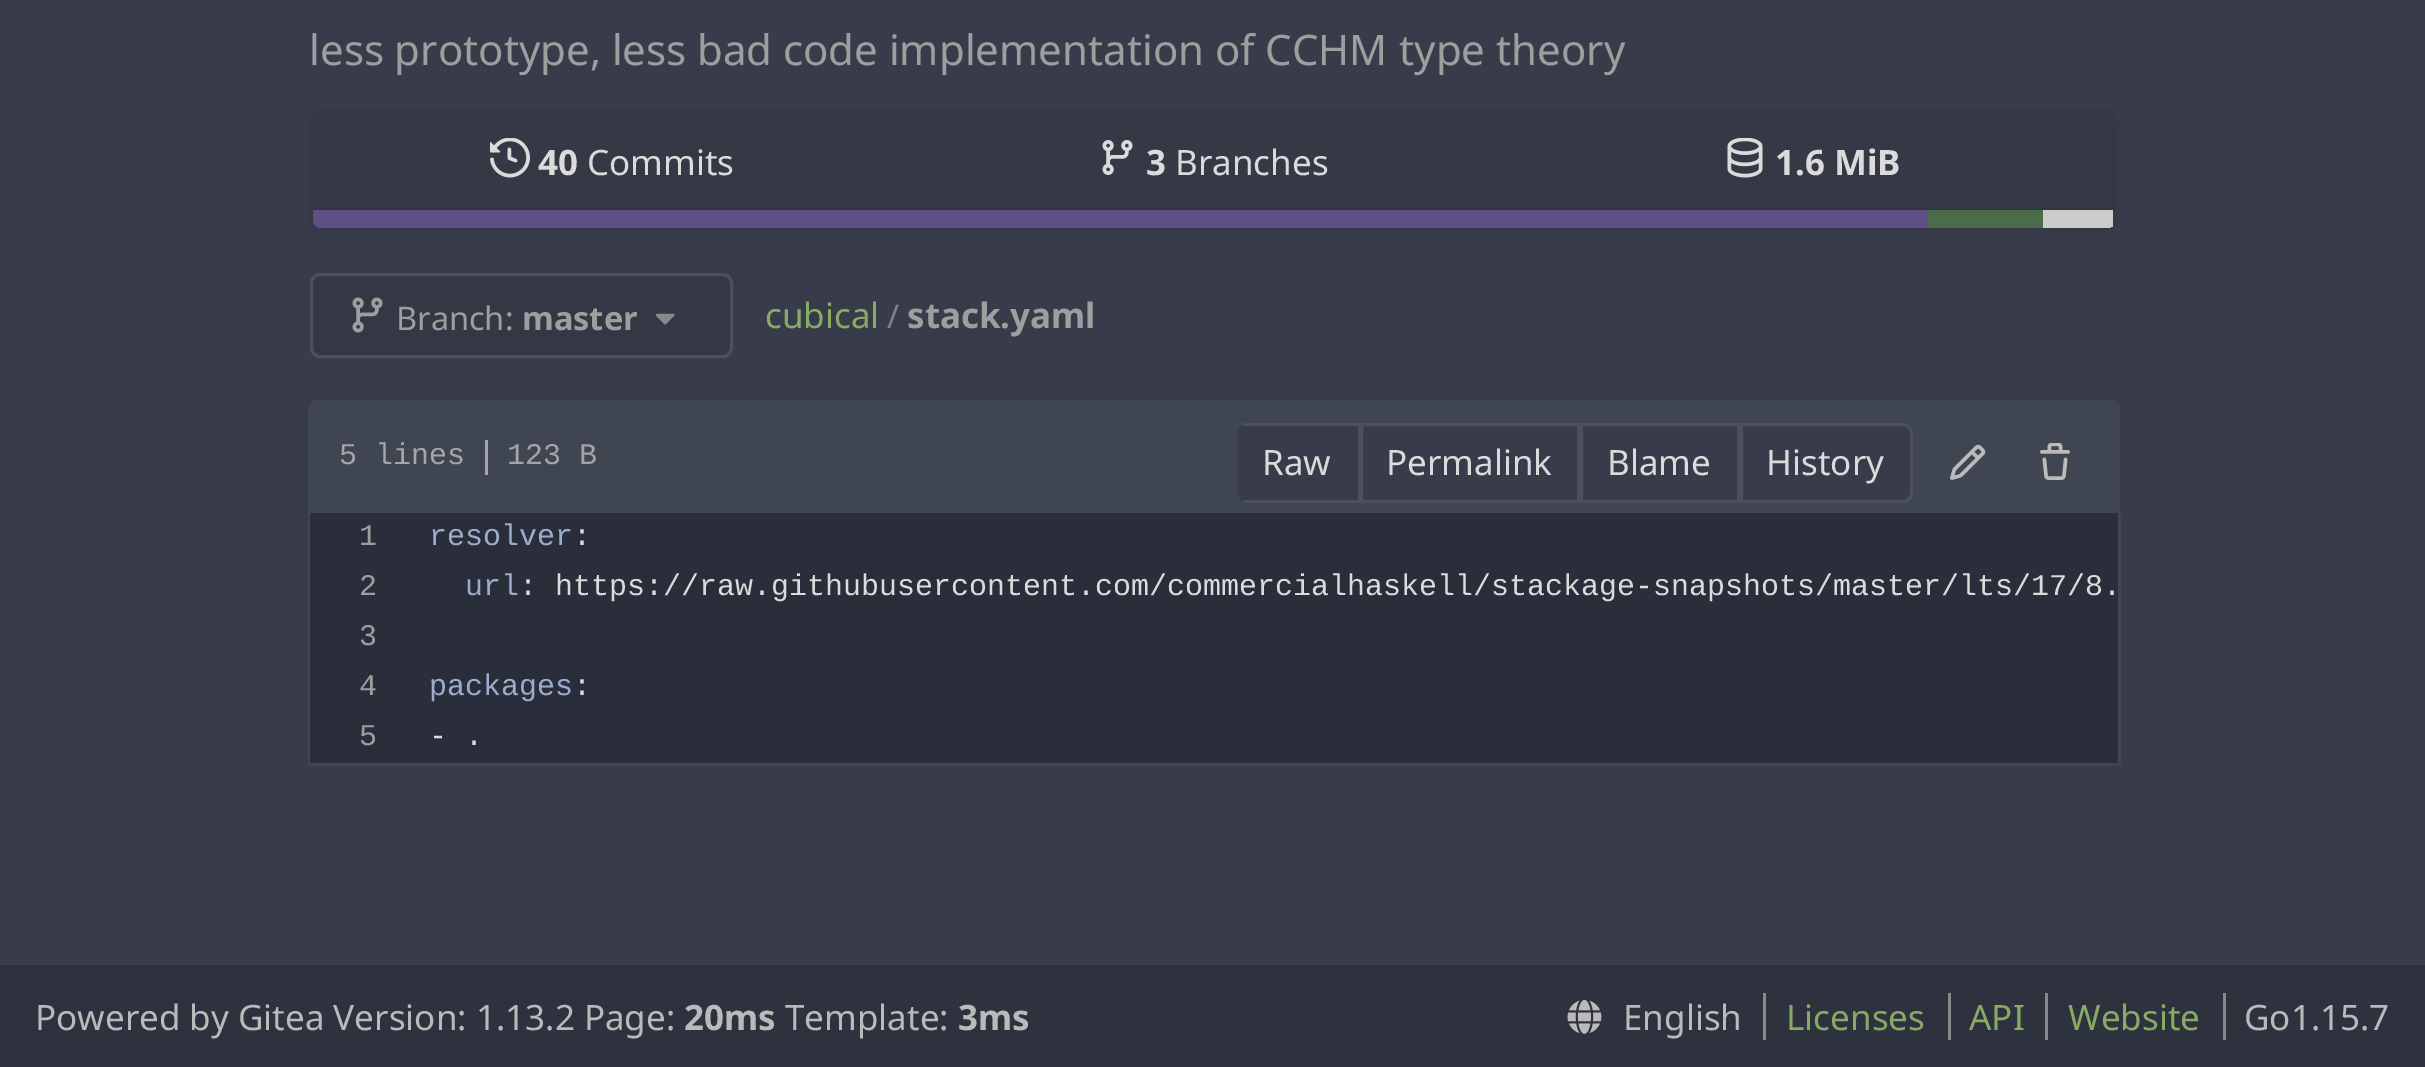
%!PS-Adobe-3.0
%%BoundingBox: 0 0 2425 1067
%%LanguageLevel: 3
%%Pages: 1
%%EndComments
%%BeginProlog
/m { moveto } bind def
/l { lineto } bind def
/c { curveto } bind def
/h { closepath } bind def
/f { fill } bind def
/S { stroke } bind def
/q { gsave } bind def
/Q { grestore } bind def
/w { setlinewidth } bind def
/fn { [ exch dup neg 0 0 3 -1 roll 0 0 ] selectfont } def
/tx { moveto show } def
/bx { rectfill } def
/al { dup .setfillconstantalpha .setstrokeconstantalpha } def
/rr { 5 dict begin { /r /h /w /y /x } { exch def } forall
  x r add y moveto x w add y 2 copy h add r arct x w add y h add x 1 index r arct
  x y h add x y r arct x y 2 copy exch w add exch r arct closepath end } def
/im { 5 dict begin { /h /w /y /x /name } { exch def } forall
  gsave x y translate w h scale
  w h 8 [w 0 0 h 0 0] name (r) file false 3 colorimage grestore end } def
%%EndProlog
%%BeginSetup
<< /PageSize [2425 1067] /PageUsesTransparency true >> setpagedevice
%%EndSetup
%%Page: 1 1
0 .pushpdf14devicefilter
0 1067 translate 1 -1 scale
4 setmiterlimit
0.22 0.235 0.29 setrgbcolor
0 0 2425 1067 bx
/NotoSans-Regular 42 fn
0.62 setgray
309 65 m -0.25 0 32 (less prototype, less bad code implementation of CCHM) widthshow
(type theory) 1399 65 tx
0.15 al
0.133 0.141 0.149 setrgbcolor
3 w
311.5 111.5 1805 117 8.5 rr S
1 al
0.208 0.224 0.271 setrgbcolor
323 113 m 2105 113 l 2110.5 113 2115 117.5 2115 123 c 2115 208 l 313 208 l 313 123 l 313 117.5 317.5 113 323 113 c h f
(image0.raw) 490 138 40 40 im
/NotoSans-Bold 35 fn
0.859 setgray
(40) 538 175 tx
/NotoSans-Regular 35 fn
(Commits) 587 175 tx
(image1.raw) 1102 140 31 35 im
/NotoSans-Bold 35 fn
(3) 1146 175 tx
/NotoSans-Regular 35 fn
(Branches) 1175 175 tx
(image2.raw) 1727 138 36 40 im
/NotoSans-Bold 35 fn
(1.6 MiB) 1775 175 tx
q
313 113 1802 115 8 rr clip newpath
0.208 0.224 0.271 setrgbcolor
313 208 m 2115 208 l 2115 225 l 2115 230.5 2110.5 235 2105 235 c 323 235 l 317.5 235 313 230.5 313 225 c h f
Q
0.196 0.212 0.251 setrgbcolor
313 208 1802 3 bx
0.369 0.314 0.525 setrgbcolor
313 210 m 1928 210 l 1928 228 l 321 228 l 316.5 228 313 224.5 313 220 c h f
0.294 0.424 0.294 setrgbcolor
1928 210 115 18 bx
q
313 113 1802 115 8 rr clip newpath
0.8 setgray
2043 210 70 18 bx
Q
0.204 0.216 0.267 setrgbcolor
311.5 274.5 420 82 8.5 rr q f Q
0.298 0.314 0.361 setrgbcolor
S
(image3.raw) 352 297 31 36 im
/NotoSans-Regular 32.5 fn
0.62 setgray
(Branch:) 396 330 tx
/NotoSans-Bold 32.5 fn
(master) 522 330 tx
(image4.raw) 655 313 20 12 im
/NotoSans-Regular 35 fn
0.529 0.671 0.388 setrgbcolor
(cubical) 765 328 tx
/NotoSans-Regular 32.5 fn
0.498 0.506 0.522 setrgbcolor
(/) 887 328 tx
/NotoSans-Bold 35 fn
0.62 setgray
(stack.yaml) 907 328 tx
0.251 0.271 0.322 setrgbcolor
318 400 m 2110 400 l 2115.5 400 2120 404.5 2120 410 c 2120 513 l 308 513 l 308 410 l 308 404.5 312.5 400 318 400 c h f
/LiberationMono-Regular 30 fn
0.647 0.647 0.659 setrgbcolor
(5 lines) 339 464 tx
485 440 3 35 bx
(123 B) 507 464 tx
0.22 0.235 0.29 setrgbcolor
1248 423 m 1360 423 l 1360 503 l 1248 503 l 1242.5 503 1238 498.5 1238 493 c 1238 433 l 1238 427.5 1242.5 423 1248 423 c h f
0.298 0.314 0.361 setrgbcolor
1243 423 117 3 bx
1358 423 2 80 bx
1243 500 117 3 bx
/NotoSans-Regular 35 fn
0.859 setgray
(Raw) 1262 475 tx
0.22 0.235 0.29 setrgbcolor
1361.5 424.5 m 1578.5 424.5 l 1578.5 501.5 l 1361.5 501.5 l h q f Q
0.298 0.314 0.361 setrgbcolor
S
0.859 setgray
(Permalink) 1386 475 tx
0.22 0.235 0.29 setrgbcolor
1581.5 424.5 m 1738.5 424.5 l 1738.5 501.5 l 1581.5 501.5 l h q f Q
0.298 0.314 0.361 setrgbcolor
S
0.859 setgray
(Blame) 1607 475 tx
0.22 0.235 0.29 setrgbcolor
1741.5 424.5 m 1903 424.5 l 1907.5 424.5 1911.5 428.5 1911.5 433 c 1911.5 493 l 1911.5 497.5 1907.5 501.5 1903 501.5 c 1741.5 501.5 l h q f Q
0.298 0.314 0.361 setrgbcolor
S
0.859 setgray
(History) 1766 475 tx
(image5.raw) 1950 444 36 36 im
(image6.raw) 2040 443 30 37 im
0.251 0.271 0.322 setrgbcolor
2118 513 3 252 bx
308 763 1812 3 bx
308 513 3 252 bx
0.165 0.18 0.227 setrgbcolor
310 513 1808 250 bx
/LiberationMono-Regular 30 fn
0.62 setgray
(1) 359 545 tx
0.616 0.675 0.8 setrgbcolor
(resolver) 429 545 tx
0.859 setgray
(:) 573 545 tx
0.62 setgray
(2) 359 595 tx
0.616 0.675 0.8 setrgbcolor
(url) 465 595 tx
0.859 setgray
(: https://raw.githubusercontent.com/commercialhaskell/stackage-snapshots/master/lts/17/8.) 519 595 tx
0.62 setgray
(3) 359 645 tx
(4) 359 695 tx
0.616 0.675 0.8 setrgbcolor
(packages) 429 695 tx
0.859 setgray
(:) 573 695 tx
0.62 setgray
(5) 359 745 tx
0.859 setgray
(- .) 429 745 tx
0.18 0.196 0.243 setrgbcolor
0 968 2425 99 bx
0.192 setgray
0 965 2425 3 bx
/NotoSans-Regular 35 fn
0.729 setgray
(Powered by Gitea Version: 1.13.2 Page:) 35 1030 tx
/NotoSans-Bold 35 fn
(20ms) 684 1030 tx
/NotoSans-Regular 35 fn
(Template:) 785 1030 tx
/NotoSans-Bold 35 fn
(3ms) 958 1030 tx
(image7.raw) 1567 999 35 35 im
/NotoSans-Regular 35 fn
(English) 1623 1030 tx
0.529 0.671 0.388 setrgbcolor
(Licenses) 1786 1030 tx
0.533 setgray
1763 993 3 47 bx
0.529 0.671 0.388 setrgbcolor
(API) 1969 1030 tx
0.533 setgray
1948 993 3 47 bx
0.529 0.671 0.388 setrgbcolor
(Website) 2068 1030 tx
0.533 setgray
2045 993 3 47 bx
0.729 setgray
(Go1.15.7) 2244 1030 tx
0.533 setgray
2223 993 3 47 bx
.poppdf14devicefilter showpage
%%EOF
